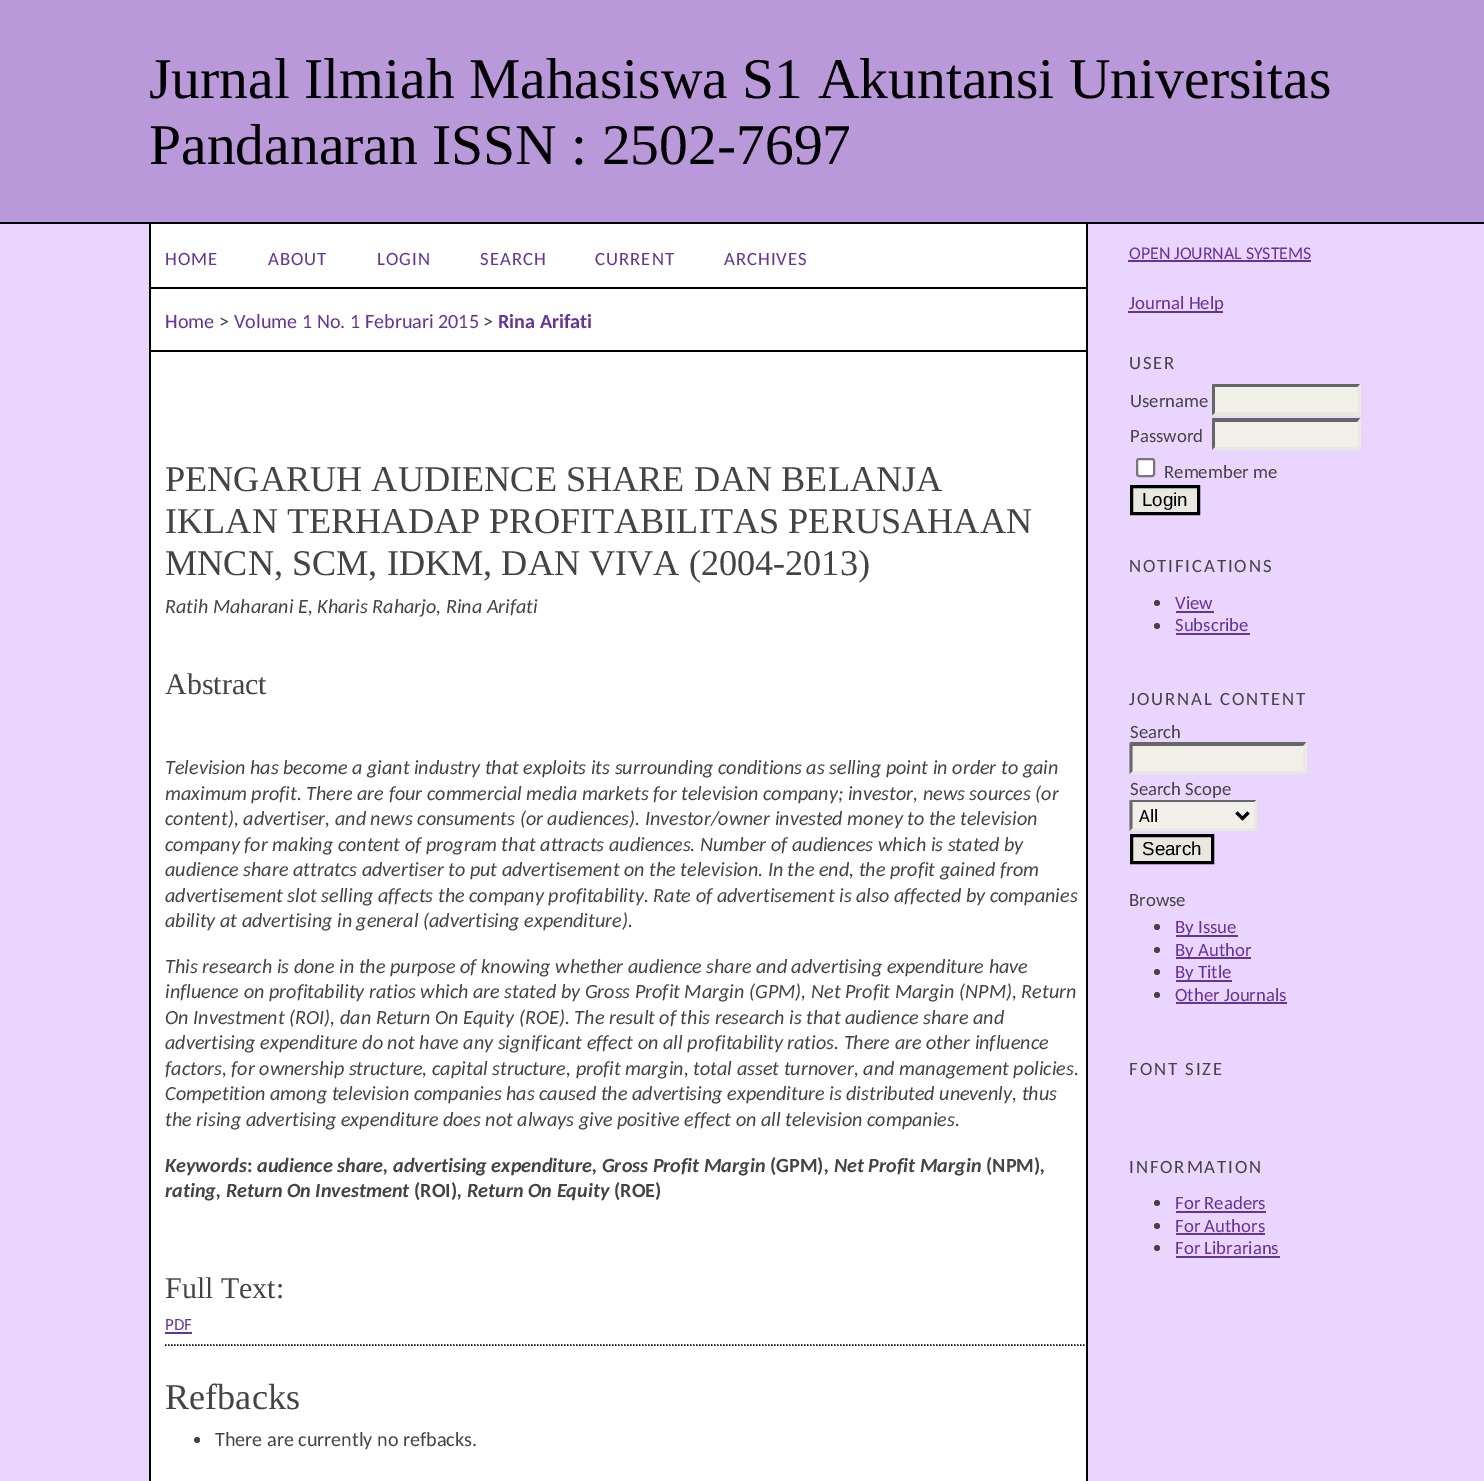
%!PS-Adobe-3.0
%%BoundingBox: 0 0 1484 1481
%%LanguageLevel: 3
%%Pages: 1
%%EndComments
%%BeginProlog
/m { moveto } bind def
/l { lineto } bind def
/h { closepath } bind def
/f { fill } bind def
/S { stroke } bind def
/q { gsave } bind def
/Q { grestore } bind def
/w { setlinewidth } bind def
/fn { [ exch dup neg 0 0 3 -1 roll 0 0 ] selectfont } def
/tx { moveto show } def
/bx { rectfill } def
/ci { newpath 0 360 arc closepath } def
/rr { 5 dict begin { /r /h /w /y /x } { exch def } forall
  x r add y moveto x w add y 2 copy h add r arct x w add y h add x 1 index r arct
  x y h add x y r arct x y 2 copy exch w add exch r arct closepath end } def
%%EndProlog
%%BeginSetup
<< /PageSize [1484 1481] >> setpagedevice
%%EndSetup
%%Page: 1 1
0 1481 translate 1 -1 scale
4 setmiterlimit
0.918 0.835 1 setrgbcolor
0 0 1484 1481 bx
0.729 0.6 0.855 setrgbcolor
0 0 1484 222 bx
0 setgray
0 222 1484 2 bx
/LiberationSerif-Regular 57.6 fn
(Jurnal Ilmiah Mahasiswa S1 Akuntansi Universitas) 149 98 tx
(Pandanaran ISSN : 2502-7697) 149 164 tx
1 setgray
151 224 935 1257 bx
0 setgray
1086 224 2 1257 bx
149 224 2 1257 bx
150 287 936 2 bx
/Carlito-Regular 18.75 fn
0.4 0.2 0.6 setrgbcolor
165 265 m 1 0 (HOME) ashow
268 265 m 1 0 (ABOUT) ashow
377 265 m 1 0 (LOGIN) ashow
480 265 m 1 0 (SEARCH) ashow
595 265 m 1 0 (CURRENT) ashow
724 265 m 1 0 (ARCHIVES) ashow
0 setgray
150 350 936 2 bx
/Carlito-Regular 20.15 fn
0.4 0.2 0.6 setrgbcolor
(Home) 165 328 tx
0.267 setgray
(>) 219 328 tx
0.4 0.2 0.6 setrgbcolor
(Volume 1 No. 1 Februari 2015) 234 328 tx
0.267 setgray
(>) 483 328 tx
/Carlito-Bold 20.15 fn
0.4 0.2 0.6 setrgbcolor
(Rina Arifati) 498 328 tx
/LiberationSerif-Regular 36.25 fn
0.267 setgray
(PENGARUH AUDIENCE SHARE DAN BELANJA) 165 491 tx
(IKLAN TERHADAP PROFITABILITAS PERUSAHAAN) 165 533 tx
(MNCN, SCM, IDKM, DAN VIVA \(2004-2013\)) 165 575 tx
/Carlito-Italic 20.15 fn
(Ratih Maharani E, Kharis Raharjo, Rina Arifati) 165 613 tx
/LiberationSerif-Regular 30 fn
(Abstract) 165 694 tx
/Carlito-Italic 20.15 fn
(Television has become a giant industry that exploits its surrounding conditions as selling point in order to gain) 165 774 tx
(maximum profit. There are four commercial media markets for television company; investor, news sources \(or) 165 800 tx
(content\), advertiser, and news consuments \(or audiences\). Investor/owner invested money to the television) 165 825 tx
(company for making content of program that attracts audiences. Number of audiences which is stated by) 165 851 tx
(audience share attratcs advertiser to put advertisement on the television. In the end, the profit gained from) 165 876 tx
(advertisement slot selling affects the company profitability. Rate of advertisement is also affected by companies) 165 902 tx
(ability at advertising in general \(advertising expenditure\).) 165 927 tx
(This research is done in the purpose of knowing whether audience share and advertising expenditure have) 165 973 tx
(influence on profitability ratios which are stated by Gross Profit Margin \(GPM\), Net Profit Margin \(NPM\), Return) 165 998 tx
(On Investment \(ROI\), dan Return On Equity \(ROE\). The result of this research is that audience share and) 165 1024 tx
(advertising expenditure do not have any significant effect on all profitability ratios. There are other influence) 165 1049 tx
(factors, for ownership structure, capital structure, profit margin, total asset turnover, and management policies.) 165 1075 tx
(Competition among television companies has caused the advertising expenditure is distributed unevenly, thus) 165 1100 tx
(the rising advertising expenditure does not always give positive effect on all television companies.) 165 1126 tx
/Carlito-BoldItalic 20.15 fn
(Keywords) 165 1172 tx
/Carlito-Bold 20.15 fn
(:) 247 1172 tx
/Carlito-BoldItalic 20.15 fn
(audience share, advertising expenditure, Gross Profit Margin) 257 1172 tx
/Carlito-Bold 20.15 fn
(\(GPM\)) 770 1172 tx
/Carlito-BoldItalic 20.15 fn
(, Net Profit Margin) 824 1172 tx
/Carlito-Bold 20.15 fn
(\(NPM\)) 986 1172 tx
/Carlito-BoldItalic 20.15 fn
(,) 1040 1172 tx
(rating, Return On Investment) 165 1197 tx
/Carlito-Bold 20.15 fn
(\(ROI\)) 414 1197 tx
/Carlito-BoldItalic 20.15 fn
(, Return On Equity) 457 1197 tx
/Carlito-Bold 20.15 fn
(\(ROE\)) 614 1197 tx
/LiberationSerif-Regular 30 fn
(Full Text:) 165 1298 tx
/Carlito-Regular 17 fn
0.4 0.2 0.6 setrgbcolor
(PDF) 165 1330 tx
165 1332 27 2 bx
0 setgray
1.5 w
[1.5 1.5] 0 setdash
165 1345 m 1086 1345 l S
/LiberationSerif-Regular 36.25 fn
0.267 setgray
(Refbacks) 165 1409 tx
197 1440 3 ci f
/Carlito-Regular 20.15 fn
(There are currently no refbacks.) 215 1446 tx
/Carlito-Regular 17.75 fn
0.4 0.2 0.6 setrgbcolor
(OPEN JOURNAL SYSTEMS) 1129 259 tx
1128 260 183 2 bx
1128 311 95 2 bx
/Carlito-Regular 18.75 fn
(Journal Help) 1129 309 tx
0.267 setgray
1129 369 m 1.9 0 (USER) ashow
(Username) 1130 407 tx
0.941 0.941 0.91 setrgbcolor
1212 384 149 32 bx
0.4 setgray
1212 384 m 1360 384 l 1358 387 l 1215 387 l h f
0.91 0.91 0.882 setrgbcolor
1360.5 384 m 1360.5 415.5 l 1357.5 412.5 l 1357.5 387 l h f
1360 416 m 1212 416 l 1215 412 l 1358 412 l h f
0.4 setgray
1212 415.5 m 1212 384 l 1215 387 l 1215 412.5 l h f
0.267 setgray
(Password) 1130 442 tx
0.941 0.941 0.91 setrgbcolor
1212 419 149 31 bx
0.4 setgray
1212 418 m 1360 418 l 1358 422 l 1215 422 l h f
0.91 0.91 0.882 setrgbcolor
1360.5 418.5 m 1360.5 450 l 1357.5 447 l 1357.5 421.5 l h f
1360 450 m 1212 450 l 1215 447 l 1358 447 l h f
0.4 setgray
1212 450 m 1212 418.5 l 1215 421.5 l 1215 447 l h f
1 setgray
1137 459 17 17 2 rr q f Q
0.463 setgray
2 w
[] 0 setdash
S
0.267 setgray
(Remember me) 1164 478 tx
0.91 0.91 0.882 setrgbcolor
1131.5 486.5 m 1198.5 486.5 l 1198.5 513.5 l 1131.5 513.5 l h q f Q
0 setgray
3 w
S
/LiberationSans-Regular 18.75 fn
(Login) 1142 506 tx
/Carlito-Regular 18.75 fn
0.267 setgray
1129 572 m 1.9 0 (NOTIFICATIONS) ashow
1157 603 3 ci f
0.4 0.2 0.6 setrgbcolor
(View) 1175 609 tx
1176 611 38 2 bx
0.267 setgray
1157 626 3 ci f
0.4 0.2 0.6 setrgbcolor
(Subscribe) 1175 631 tx
1176 633 74 2 bx
0.267 setgray
1129 705 m 1.9 0 (JOURNAL CONTENT) ashow
(Search) 1130 738 tx
0.941 0.941 0.91 setrgbcolor
1130 743 177 31 bx
0.4 setgray
1130 742 m 1306 742 l 1304 746 l 1132 746 l h f
0.91 0.91 0.882 setrgbcolor
1306.5 742.5 m 1306.5 774 l 1303.5 771 l 1303.5 745.5 l h f
1306 774 m 1130 774 l 1132 771 l 1304 771 l h f
0.4 setgray
1129.5 774 m 1129.5 742.5 l 1132.5 745.5 l 1132.5 771 l h f
0.267 setgray
(Search Scope) 1130 795 tx
0.941 0.941 0.91 setrgbcolor
1130 800 127 31 bx
0.4 setgray
1130 800 m 1257 800 l 1254 802 l 1132 802 l h f
0.91 0.91 0.882 setrgbcolor
1257 799.5 m 1257 831 l 1254 828 l 1254 802.5 l h f
1257 831 m 1130 831 l 1132 828 l 1254 828 l h f
0.4 setgray
1129.5 831 m 1129.5 799.5 l 1132.5 802.5 l 1132.5 828 l h f
0 setgray
1236.5 812.5 m 1242.5 818.5 l 1248.5 812.5 l S
(All) 1139 822 tx
0.91 0.91 0.882 setrgbcolor
1131.5 835.5 m 1212.5 835.5 l 1212.5 862.5 l 1131.5 862.5 l h q f Q
0 setgray
S
/LiberationSans-Regular 18.75 fn
(Search) 1142 855 tx
/Carlito-Regular 18.75 fn
0.267 setgray
(Browse) 1129 906 tx
1157 927 3 ci f
0.4 0.2 0.6 setrgbcolor
1176 935 62 2 bx
(By Issue) 1175 933 tx
0.267 setgray
1157 950 3 ci f
0.4 0.2 0.6 setrgbcolor
1176 957 75 2 bx
(By Author) 1175 956 tx
0.267 setgray
1157 972 3 ci f
0.4 0.2 0.6 setrgbcolor
1176 980 56 2 bx
(By Title) 1175 978 tx
0.267 setgray
1157 995 3 ci f
0.4 0.2 0.6 setrgbcolor
(Other Journals) 1175 1001 tx
1176 1002 111 2 bx
0.267 setgray
1129 1075 m 1.9 0 (FONT SIZE) ashow
1129 1173 m 1.9 0 (INFORMATION) ashow
1157 1203 3 ci f
0.4 0.2 0.6 setrgbcolor
(For Readers) 1175 1209 tx
1176 1211 90 2 bx
0.267 setgray
1157 1226 3 ci f
0.4 0.2 0.6 setrgbcolor
(For Authors) 1175 1232 tx
1176 1233 89 2 bx
0.267 setgray
1157 1248 3 ci f
0.4 0.2 0.6 setrgbcolor
(For Librarians) 1175 1254 tx
1176 1256 104 2 bx
showpage
%%EOF
